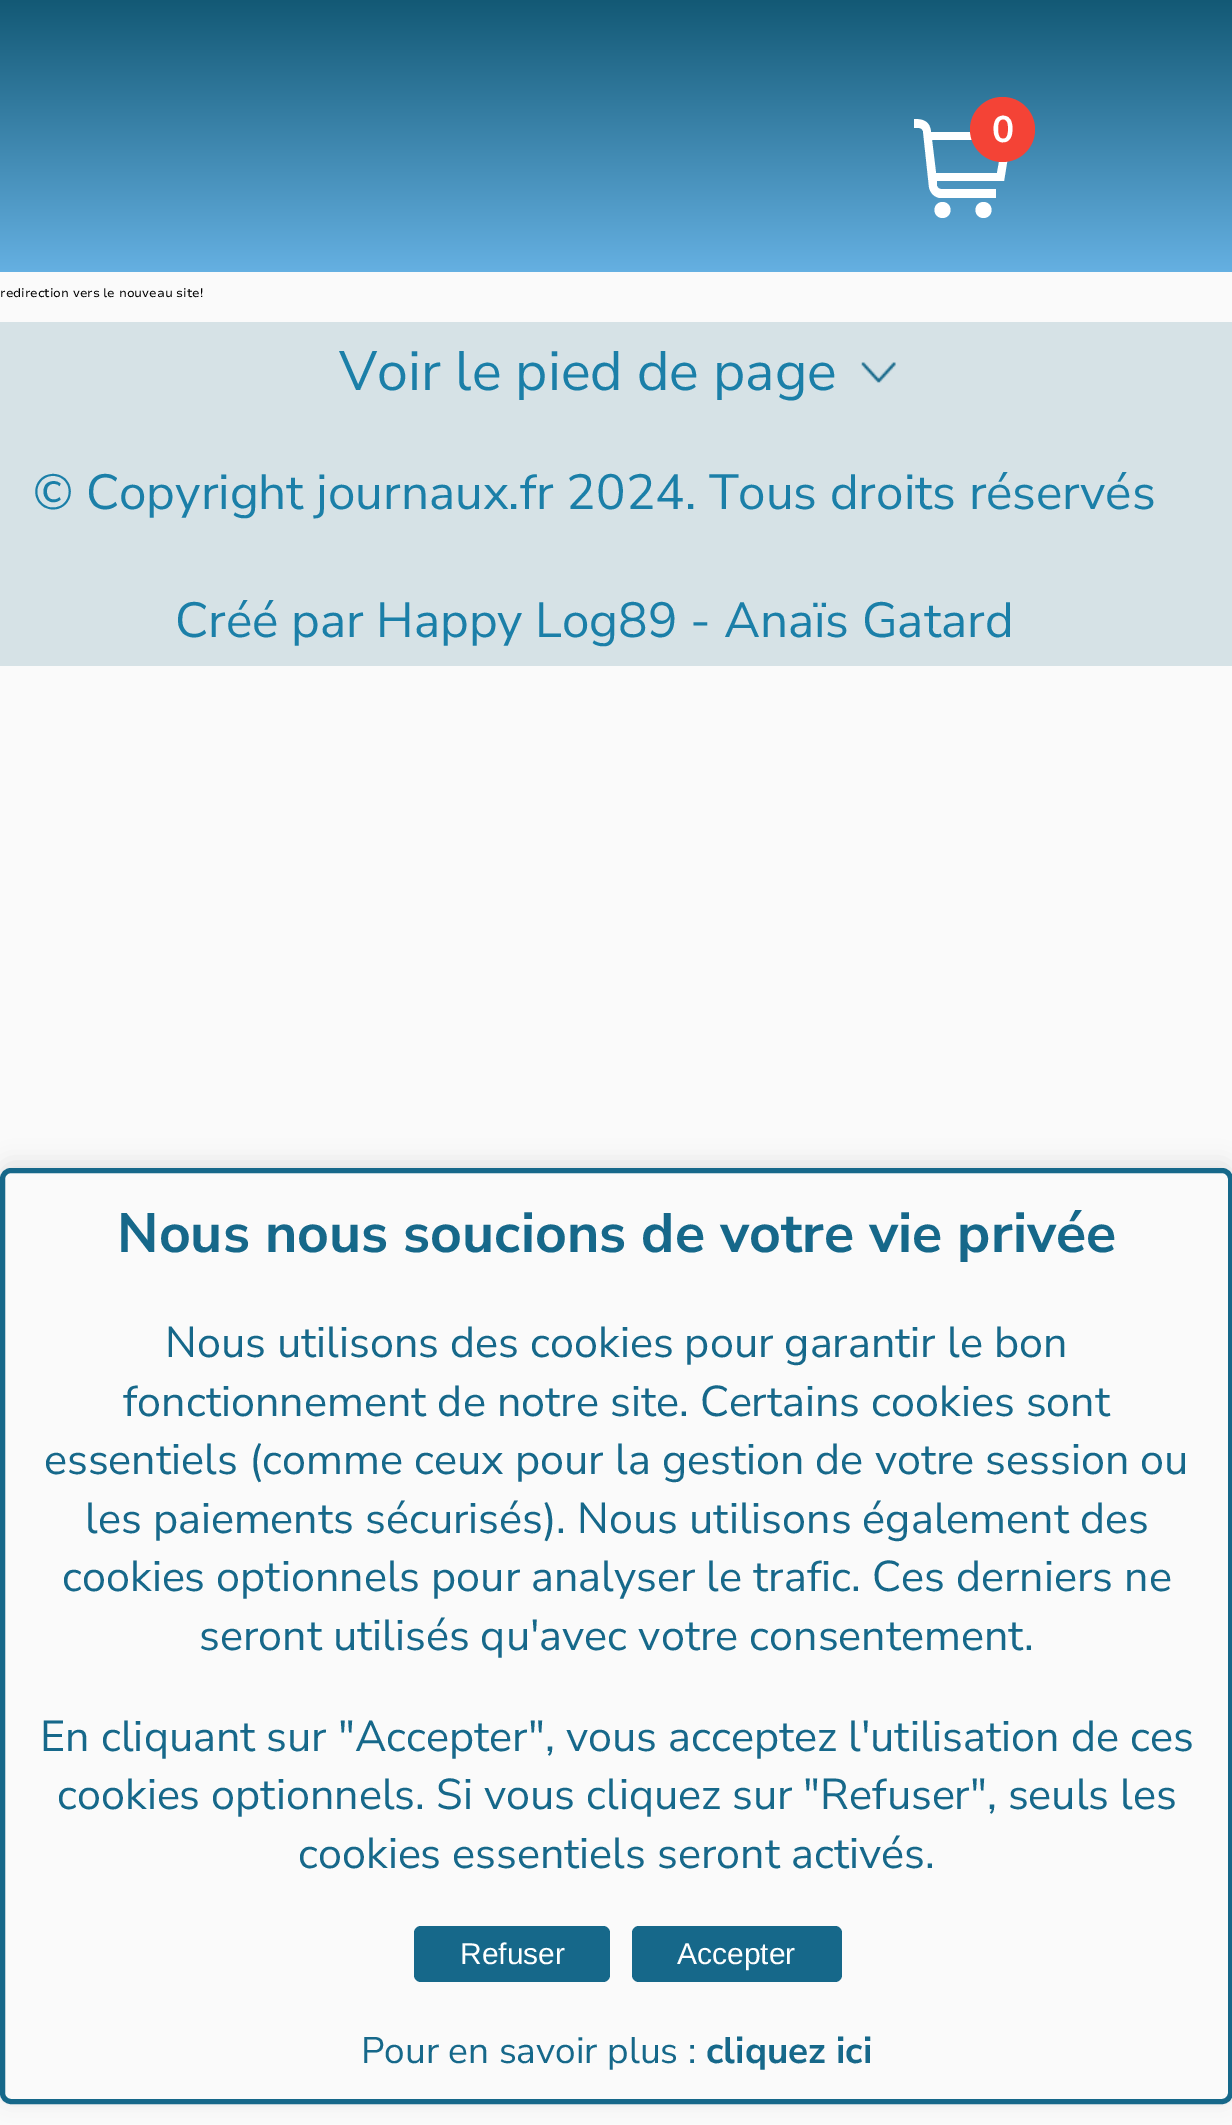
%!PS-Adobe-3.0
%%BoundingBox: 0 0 1232 2125
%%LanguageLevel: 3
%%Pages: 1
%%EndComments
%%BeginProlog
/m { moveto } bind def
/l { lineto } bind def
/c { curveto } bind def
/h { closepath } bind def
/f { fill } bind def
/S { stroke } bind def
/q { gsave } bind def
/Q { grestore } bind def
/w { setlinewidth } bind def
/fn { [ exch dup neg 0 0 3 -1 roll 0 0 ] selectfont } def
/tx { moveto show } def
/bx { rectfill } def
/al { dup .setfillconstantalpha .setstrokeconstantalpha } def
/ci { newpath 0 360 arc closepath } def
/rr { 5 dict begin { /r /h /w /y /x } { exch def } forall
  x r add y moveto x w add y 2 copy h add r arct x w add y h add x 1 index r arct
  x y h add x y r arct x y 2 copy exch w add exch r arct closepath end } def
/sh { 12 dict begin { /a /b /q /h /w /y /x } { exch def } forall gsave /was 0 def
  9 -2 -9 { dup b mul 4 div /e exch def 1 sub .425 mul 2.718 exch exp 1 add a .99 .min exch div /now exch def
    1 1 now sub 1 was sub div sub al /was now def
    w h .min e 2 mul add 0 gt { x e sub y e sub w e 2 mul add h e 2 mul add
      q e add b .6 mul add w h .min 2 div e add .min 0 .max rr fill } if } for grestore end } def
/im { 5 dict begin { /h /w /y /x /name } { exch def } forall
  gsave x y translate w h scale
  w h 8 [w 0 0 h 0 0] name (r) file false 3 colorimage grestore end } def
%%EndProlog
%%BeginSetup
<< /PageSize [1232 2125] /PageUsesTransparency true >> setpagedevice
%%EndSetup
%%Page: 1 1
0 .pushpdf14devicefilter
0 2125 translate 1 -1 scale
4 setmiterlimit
0.98 setgray
0 0 1232 2125 bx
q 0 0 m 1232 0 l 1232 272 l 0 272 l h clip newpath
<< /ShadingType 2 /ColorSpace /DeviceRGB /Coords [617 0 617 272] /Extend [true true] /Function << /FunctionType 2 /Domain [0 1] /C0 [0.075 0.349 0.459] /C1 [0.396 0.69 0.886] /N 1 >> >> shfill Q
1 setgray
1012 132 m 931 132 l 930 121 923 119 914 119 c 914 128 l 919 128 l 921 128 922 129 923 131 c 929 187 l 930 193 935 198 941 198 c 996 198 l 996 189 l 941 189 l 939 189 938 188 937 186 c 937 181 l 1004 181 l h 997 173 m 936 173 l 932 140 l 1003 140 l h f
0.957 0.263 0.212 setrgbcolor
1002.5 129.5 32.5 ci f
/NunitoSans-Bold 37 fn
1 setgray
(0) 992 142 tx
942.5 210 8 ci f
983.5 210 8 ci f
/NunitoSans-Regular 12.3 fn
0 setgray
(redirection vers le nouveau site!) 0 297 tx
0.839 0.886 0.902 setrgbcolor
0 322 1232 344 bx
/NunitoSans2-Regular 55.5 fn
0.106 0.498 0.659 setrgbcolor
(Voir le pied de page) 339 390 tx
(image0.raw) 861 362 35 21 im
/NunitoSans2-Regular 49.3 fn
(© Copyright journaux.fr 2024. Tous droits réservés) 33 509 tx
(Créé par Happy Log89 - Anaïs Gatard) 175 637 tx
0 setgray
0 1163 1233 936 11 11 0.1 sh
0.98 setgray
2.5 1170.5 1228 931 8.5 rr q f Q
0.086 0.408 0.541 setrgbcolor
5 w
S
/NunitoSans-Bold 55.5 fn
(Nous nous soucions de votre vie privée) 117 1252 tx
/NunitoSans2-Regular 43.15 fn
(Nous utilisons des cookies pour garantir le bon) 165 1357 tx
(fonctionnement de notre site. Certains cookies sont) 123 1416 tx
(essentiels \(comme ceux pour la gestion de votre session ou) 44 1474 tx
(les paiements sécurisés\). Nous utilisons également des) 85 1533 tx
(cookies optionnels pour analyser le trafic. Ces derniers ne) 62 1591 tx
(seront utilisés qu'avec votre consentement.) 199 1650 tx
(En cliquant sur "Accepter", vous acceptez l'utilisation de ces) 40 1751 tx
(cookies optionnels. Si vous cliquez sur "Refuser", seuls les) 57 1809 tx
(cookies essentiels seront activés.) 298 1868 tx
414 1926 196 56 7 rr f
/LiberationSans-Regular 30 fn
1 setgray
(Refuser) 460 1964 tx
0.086 0.408 0.541 setrgbcolor
632 1926 210 56 7 rr f
1 setgray
(Accepter) 677 1964 tx
/NunitoSans2-Regular 37 fn
0.086 0.408 0.541 setrgbcolor
(Pour en savoir plus :) 361 2063 tx
/NunitoSans-Bold 37 fn
(cliquez ici) 706 2063 tx
.poppdf14devicefilter showpage
%%EOF
